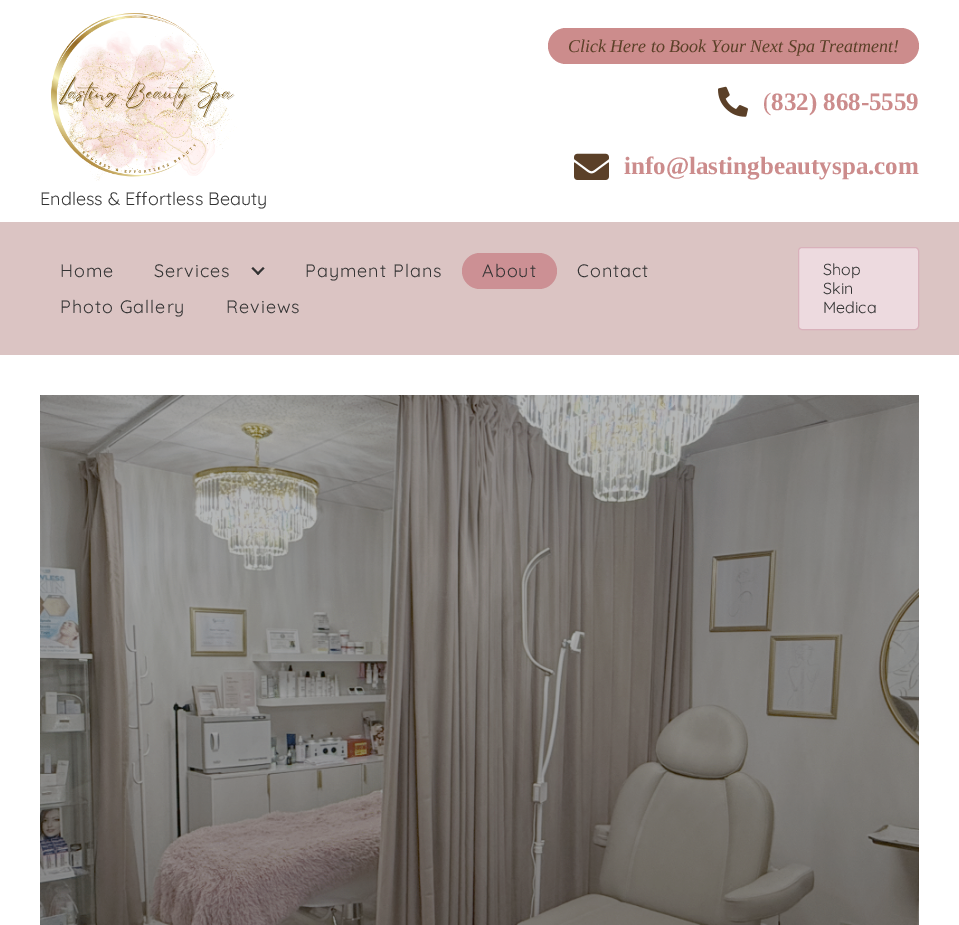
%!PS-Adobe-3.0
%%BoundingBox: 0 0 959 925
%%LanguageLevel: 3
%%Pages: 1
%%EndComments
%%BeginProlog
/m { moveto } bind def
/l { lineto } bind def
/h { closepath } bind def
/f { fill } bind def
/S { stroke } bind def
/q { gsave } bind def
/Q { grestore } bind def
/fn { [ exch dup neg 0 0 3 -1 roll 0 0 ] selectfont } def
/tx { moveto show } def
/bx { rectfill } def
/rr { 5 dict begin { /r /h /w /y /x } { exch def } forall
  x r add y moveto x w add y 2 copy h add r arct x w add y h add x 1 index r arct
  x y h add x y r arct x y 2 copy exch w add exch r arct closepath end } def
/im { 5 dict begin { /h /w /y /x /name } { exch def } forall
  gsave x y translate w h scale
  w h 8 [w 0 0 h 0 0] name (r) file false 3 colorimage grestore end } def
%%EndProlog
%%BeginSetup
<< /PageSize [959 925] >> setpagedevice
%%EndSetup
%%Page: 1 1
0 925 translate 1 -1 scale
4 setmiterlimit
1 setgray
0 0 959 925 bx
0.8 0.549 0.549 setrgbcolor
548 28 371 36 18 rr f
/LiberationSerif-Italic 18 fn
0.357 0.251 0.157 setrgbcolor
(Click Here to Book Your Next Spa Treatment!) 568 52 tx
(image0.raw) 718 86 30 31 im
/LiberationSerif-Regular 25 fn
0.8 0.549 0.549 setrgbcolor
(\() 763 110 tx
/LiberationSerif-Bold 25 fn
(832\) 868-5559) 771 110 tx
(image1.raw) 574 153 35 27 im
(info@lastingbeautyspa.com) 624 174 tx
(image2.raw) 51 13 186 168 im
/Quicksand-Regular 18 fn
0.2 setgray
(Endless & Effortless Beauty) 40 205 tx
0.859 0.769 0.765 setrgbcolor
0 222 959 133 bx
0.2 setgray
60 277 m 1 0 (Home) ashow
154 277 m 1 0 (Services) ashow
263 267 m 264.5 268.5 l 258 275 l 256.5 273.5 l h f
253 267 m 259.5 273.5 l 258 275 l 251.5 268.5 l h f
305 277 m 1 0 (Payment Plans) ashow
0.8 0.565 0.58 setrgbcolor
462 253 95 36 18 rr f
0.2 setgray
482 277 m 1 0 (About) ashow
577 277 m 1 0 (Contact) ashow
60 313 m 1 0 (Photo Gallery) ashow
226 313 m 1 0 (Reviews) ashow
0.929 0.855 0.875 setrgbcolor
798.5 247.5 120 82 3.5 rr q f Q
0.851 0.694 0.733 setrgbcolor
S
/Quicksand-Regular 16 fn
0.2 setgray
(Shop) 823 275 tx
(Skin) 823 294 tx
(Medica) 823 313 tx
(image3.raw) 40 395 879 530 im
showpage
%%EOF
